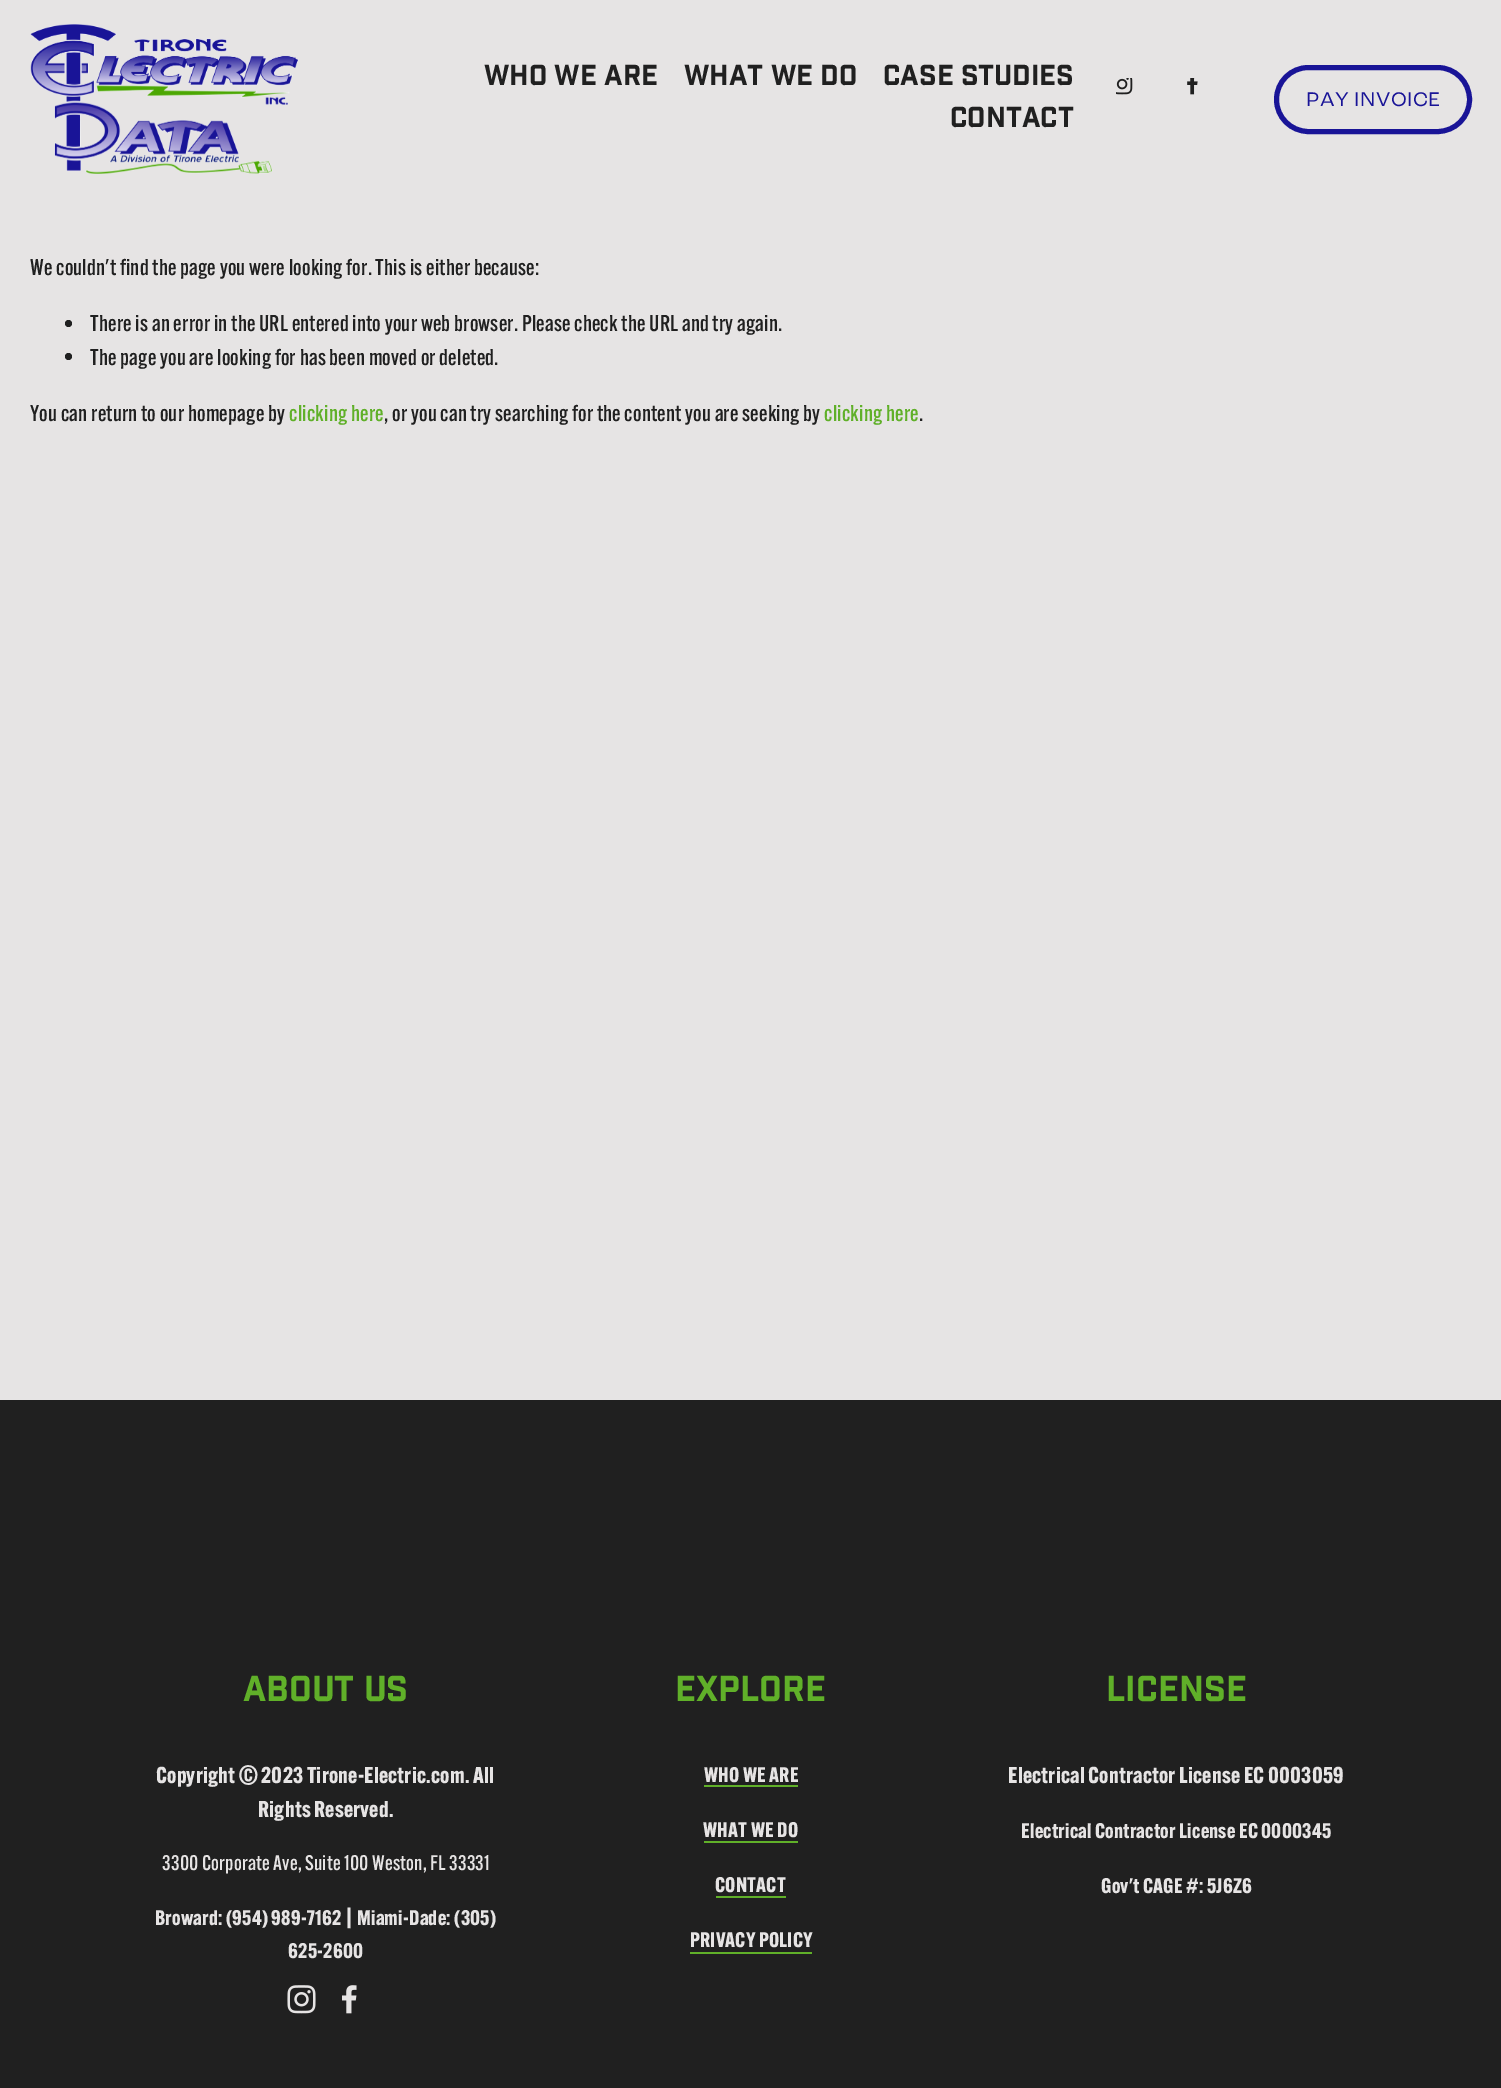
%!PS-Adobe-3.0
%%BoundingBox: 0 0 1501 2088
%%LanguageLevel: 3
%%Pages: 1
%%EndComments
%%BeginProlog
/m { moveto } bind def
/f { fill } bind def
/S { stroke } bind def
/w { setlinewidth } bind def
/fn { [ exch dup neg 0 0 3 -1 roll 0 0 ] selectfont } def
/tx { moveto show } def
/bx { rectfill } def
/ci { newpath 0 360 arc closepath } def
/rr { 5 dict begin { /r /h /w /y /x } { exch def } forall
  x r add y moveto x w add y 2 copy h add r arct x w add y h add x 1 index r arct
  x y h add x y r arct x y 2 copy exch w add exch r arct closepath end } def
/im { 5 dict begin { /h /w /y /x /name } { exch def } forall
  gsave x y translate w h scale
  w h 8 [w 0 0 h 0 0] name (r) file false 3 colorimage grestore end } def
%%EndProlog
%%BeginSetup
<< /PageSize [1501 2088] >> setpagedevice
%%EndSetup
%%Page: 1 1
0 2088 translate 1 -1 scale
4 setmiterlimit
0.902 0.894 0.894 setrgbcolor
0 0 1501 2088 bx
(image0.raw) 30 24 269 150 im
/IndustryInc-Regular 28 fn
0.125 setgray
(WHO WE ARE) 484 85 tx
(WHAT WE DO) 684 85 tx
(CASE STUDIES) 883 85 tx
(CONTACT) 950 127 tx
(image1.raw) 1116 78 17 17 im
(image2.raw) 1187 78 11 17 im
0.098 0.078 0.592 setrgbcolor
5 w
1276.5 67.5 193 64 32 rr S
/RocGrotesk-Regular 20.75 fn
1306 106 m 0.5 0 (PAY INVOICE) ashow
/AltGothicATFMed-Medium 22.5 fn
0.125 setgray
30 275 m 0.22 0 (We couldn't find the page you were looking for. This is either because:) ashow
68.5 323.5 3.5 ci f
90 331 m 0.22 0 (There is an error in the URL entered into your web browser. Please check the URL and try again.) ashow
68.5 356.5 3.5 ci f
90 365 m 0.22 0 (The page you are looking for has been moved or deleted.) ashow
30 421 m 0.22 0 (You can return to our homepage by) ashow
0.376 0.69 0.161 setrgbcolor
289 421 m 0.22 0 (clicking here) ashow
0.125 setgray
384 421 m 0.22 0 (, or you can try searching for the content you are seeking by) ashow
0.376 0.69 0.161 setrgbcolor
824 421 m 0.22 0 (clicking here) ashow
0.125 setgray
919 421 m 0.22 0 (.) ashow
0 1400 1501 688 bx
/IndustryInc-Regular 35 fn
0.376 0.69 0.161 setrgbcolor
(ABOUT US) 243 1701 tx
/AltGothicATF-Bold 22.5 fn
0.902 0.894 0.894 setrgbcolor
156 1783 m 0.22 0 (Copyright © 2023 Tirone-Electric.com. All) ashow
258 1817 m 0.22 0 (Rights Reserved.) ashow
/AltGothicATFMed-Medium 20.75 fn
162 1870 m 0.22 0 (3300 Corporate Ave, Suite 100 Weston, FL 33331) ashow
/AltGothicATF-Bold 20.75 fn
155 1925 m 0.22 0 (Broward: \(954\) 989-7162 | Miami-Dade: \(305\)) ashow
288 1958 m 0.22 0 (625-2600) ashow
/IndustryInc-Regular 35 fn
0.376 0.69 0.161 setrgbcolor
(EXPLORE) 675 1701 tx
/AltGothicATF-Bold 20.75 fn
0.902 0.894 0.894 setrgbcolor
704 1782 m 0.22 0 (WHO WE ARE) ashow
0.376 0.69 0.161 setrgbcolor
704 1785 94 2 bx
0.902 0.894 0.894 setrgbcolor
703 1837 m 0.22 0 (WHAT WE DO) ashow
0.376 0.69 0.161 setrgbcolor
704 1841 94 2 bx
0.902 0.894 0.894 setrgbcolor
715 1892 m 0.22 0 (CONTACT) ashow
0.376 0.69 0.161 setrgbcolor
716 1896 70 2 bx
0.902 0.894 0.894 setrgbcolor
690 1947 m 0.22 0 (PRIVACY POLICY) ashow
0.376 0.69 0.161 setrgbcolor
690 1952 122 2 bx
/IndustryInc-Regular 35 fn
(LICENSE) 1106 1701 tx
/AltGothicATF-Bold 22.5 fn
0.902 0.894 0.894 setrgbcolor
1008 1783 m 0.22 0 (Electrical Contractor License EC 0003059) ashow
/AltGothicATF-Bold 20.75 fn
1021 1838 m 0.22 0 (Electrical Contractor License EC 0000345) ashow
1101 1893 m 0.22 0 (Gov't CAGE #: 5J6Z6) ashow
(image3.raw) 287 1985 29 29 im
(image4.raw) 342 1985 15 29 im
showpage
%%EOF
